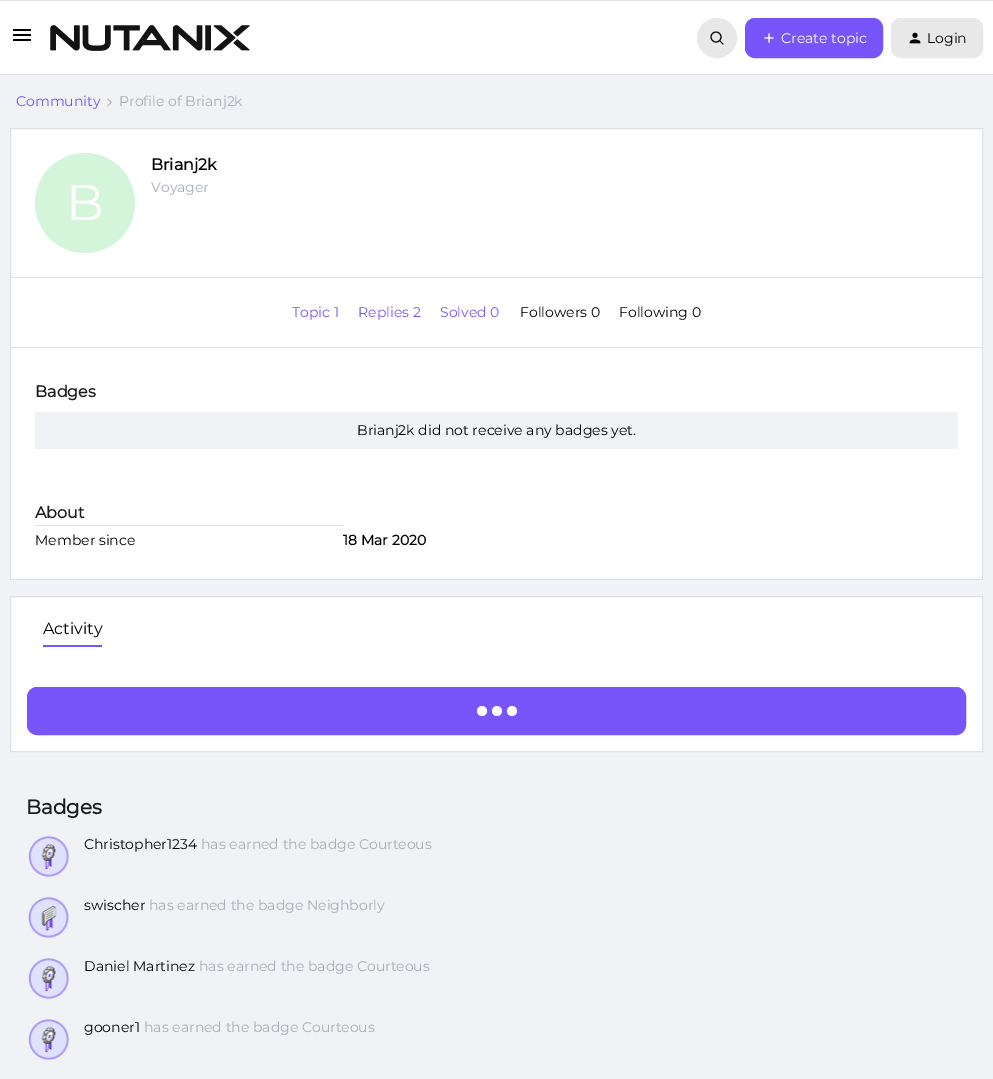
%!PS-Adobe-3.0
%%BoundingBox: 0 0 993 1079
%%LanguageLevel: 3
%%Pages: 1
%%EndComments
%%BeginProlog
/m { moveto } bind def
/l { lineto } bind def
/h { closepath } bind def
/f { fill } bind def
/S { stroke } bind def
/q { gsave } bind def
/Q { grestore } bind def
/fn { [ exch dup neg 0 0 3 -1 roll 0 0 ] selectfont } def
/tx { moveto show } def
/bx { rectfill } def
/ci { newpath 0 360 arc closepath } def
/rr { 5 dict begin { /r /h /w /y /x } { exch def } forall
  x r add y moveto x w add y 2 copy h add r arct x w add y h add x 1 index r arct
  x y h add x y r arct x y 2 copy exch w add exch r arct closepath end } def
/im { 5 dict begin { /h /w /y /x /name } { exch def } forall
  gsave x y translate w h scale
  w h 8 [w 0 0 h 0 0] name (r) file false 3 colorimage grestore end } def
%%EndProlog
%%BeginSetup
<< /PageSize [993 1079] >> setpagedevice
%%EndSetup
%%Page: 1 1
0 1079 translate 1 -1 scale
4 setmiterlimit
0.941 0.949 0.965 setrgbcolor
0 0 993 1079 bx
1 setgray
0 1 993 73 bx
0.878 setgray
0 0 993 1 bx
0 74 993 1 bx
(image0.raw) 13 29 18 12 im
(image1.raw) 50 25 200 26 im
0.91 setgray
717 38 19.5 ci q f Q
S
0 setgray
716 37 5 ci S
1 setlinecap
720 41 m 723 44 l S
0.471 0.333 0.98 setrgbcolor
745.5 18.5 137 39 9.5 rr q f Q
0 setlinecap
S
(image2.raw) 764 33 10 10 im
/Montserrat-Thin 14 fn
1 setgray
(Create topic) 781 43 tx
0.91 setgray
891.5 18.5 91 39 9.5 rr q f Q
S
(image3.raw) 909 32 12 12 im
0 setgray
(Login) 927 43 tx
0.471 0.333 0.98 setrgbcolor
(Community) 16 106 tx
(image4.raw) 107 98 5 9 im
0.655 0.682 0.71 setrgbcolor
(Profile of Brianj2k) 119 106 tx
1 setgray
10.5 128.5 m 982.5 128.5 l 982.5 277.5 l 10.5 277.5 l h q f Q
0.878 setgray
S
/Montserrat-Bold 16 fn
0 setgray
(Brianj2k) 151 170 tx
/Montserrat-Thin 14 fn
0.655 0.682 0.71 setrgbcolor
(Voyager) 151 192 tx
0.835 0.961 0.859 setrgbcolor
85 203 50 ci f
/Montserrat-Thin 50 fn
1 setgray
(B) 66 220 tx
11 278 971 69 bx
0.878 setgray
982 278 1 302 bx
10 347 973 1 bx
10 278 1 70 bx
/Montserrat-Thin 14 fn
0.471 0.333 0.98 setrgbcolor
(Topic 1) 292 317 tx
(Replies 2) 358 317 tx
(Solved 0) 440 317 tx
0 setgray
(Followers 0) 520 317 tx
(Following 0) 619 317 tx
1 setgray
11 348 971 231 bx
0.878 setgray
10 348 1 125 bx
/Montserrat-Bold 16 fn
0.102 setgray
(Badges) 35 397 tx
0.941 0.949 0.965 setrgbcolor
35 412 923 37 bx
/Montserrat-Thin 14 fn
0 setgray
(Brianj2k did not receive any badges yet.) 357 435 tx
0.878 setgray
10 579 973 1 bx
10 473 1 107 bx
35 525 308 1 bx
/Montserrat-Bold 16 fn
0.102 setgray
(About) 35 518 tx
/Montserrat-Thin 14 fn
0 setgray
(Member since) 35 545 tx
/Montserrat-Bold 14 fn
(18 Mar 2020) 343 545 tx
1 setgray
10.5 596.5 m 982.5 596.5 l 982.5 751.5 l 10.5 751.5 l h q f Q
0.878 setgray
S
0.471 0.333 0.98 setrgbcolor
43 645 59 2 bx
/Montserrat-Thin 16 fn
0 setgray
(Activity) 43 634 tx
0.471 0.333 0.98 setrgbcolor
27.5 687.5 938 47 9.5 rr q f Q
S
1 setgray
497 711 5 ci f
482 711 5 ci f
512 711 5 ci f
/Montserrat-Bold 20 fn
0.102 setgray
(Badges) 26 814 tx
(image5.raw) 28 836 41 41 im
/Montserrat-Thin 14 fn
0 setgray
(Christopher1234) 84 849 tx
0.655 0.682 0.71 setrgbcolor
(has earned the badge Courteous) 201 849 tx
(image6.raw) 28 897 41 41 im
0 setgray
(swischer) 84 910 tx
0.655 0.682 0.71 setrgbcolor
(has earned the badge Neighborly) 149 910 tx
(image5.raw) 28 958 41 41 im
0 setgray
(Daniel Martinez) 84 971 tx
0.655 0.682 0.71 setrgbcolor
(has earned the badge Courteous) 199 971 tx
(image5.raw) 28 1019 41 41 im
0 setgray
(gooner1) 84 1032 tx
0.655 0.682 0.71 setrgbcolor
(has earned the badge Courteous) 144 1032 tx
showpage
%%EOF
